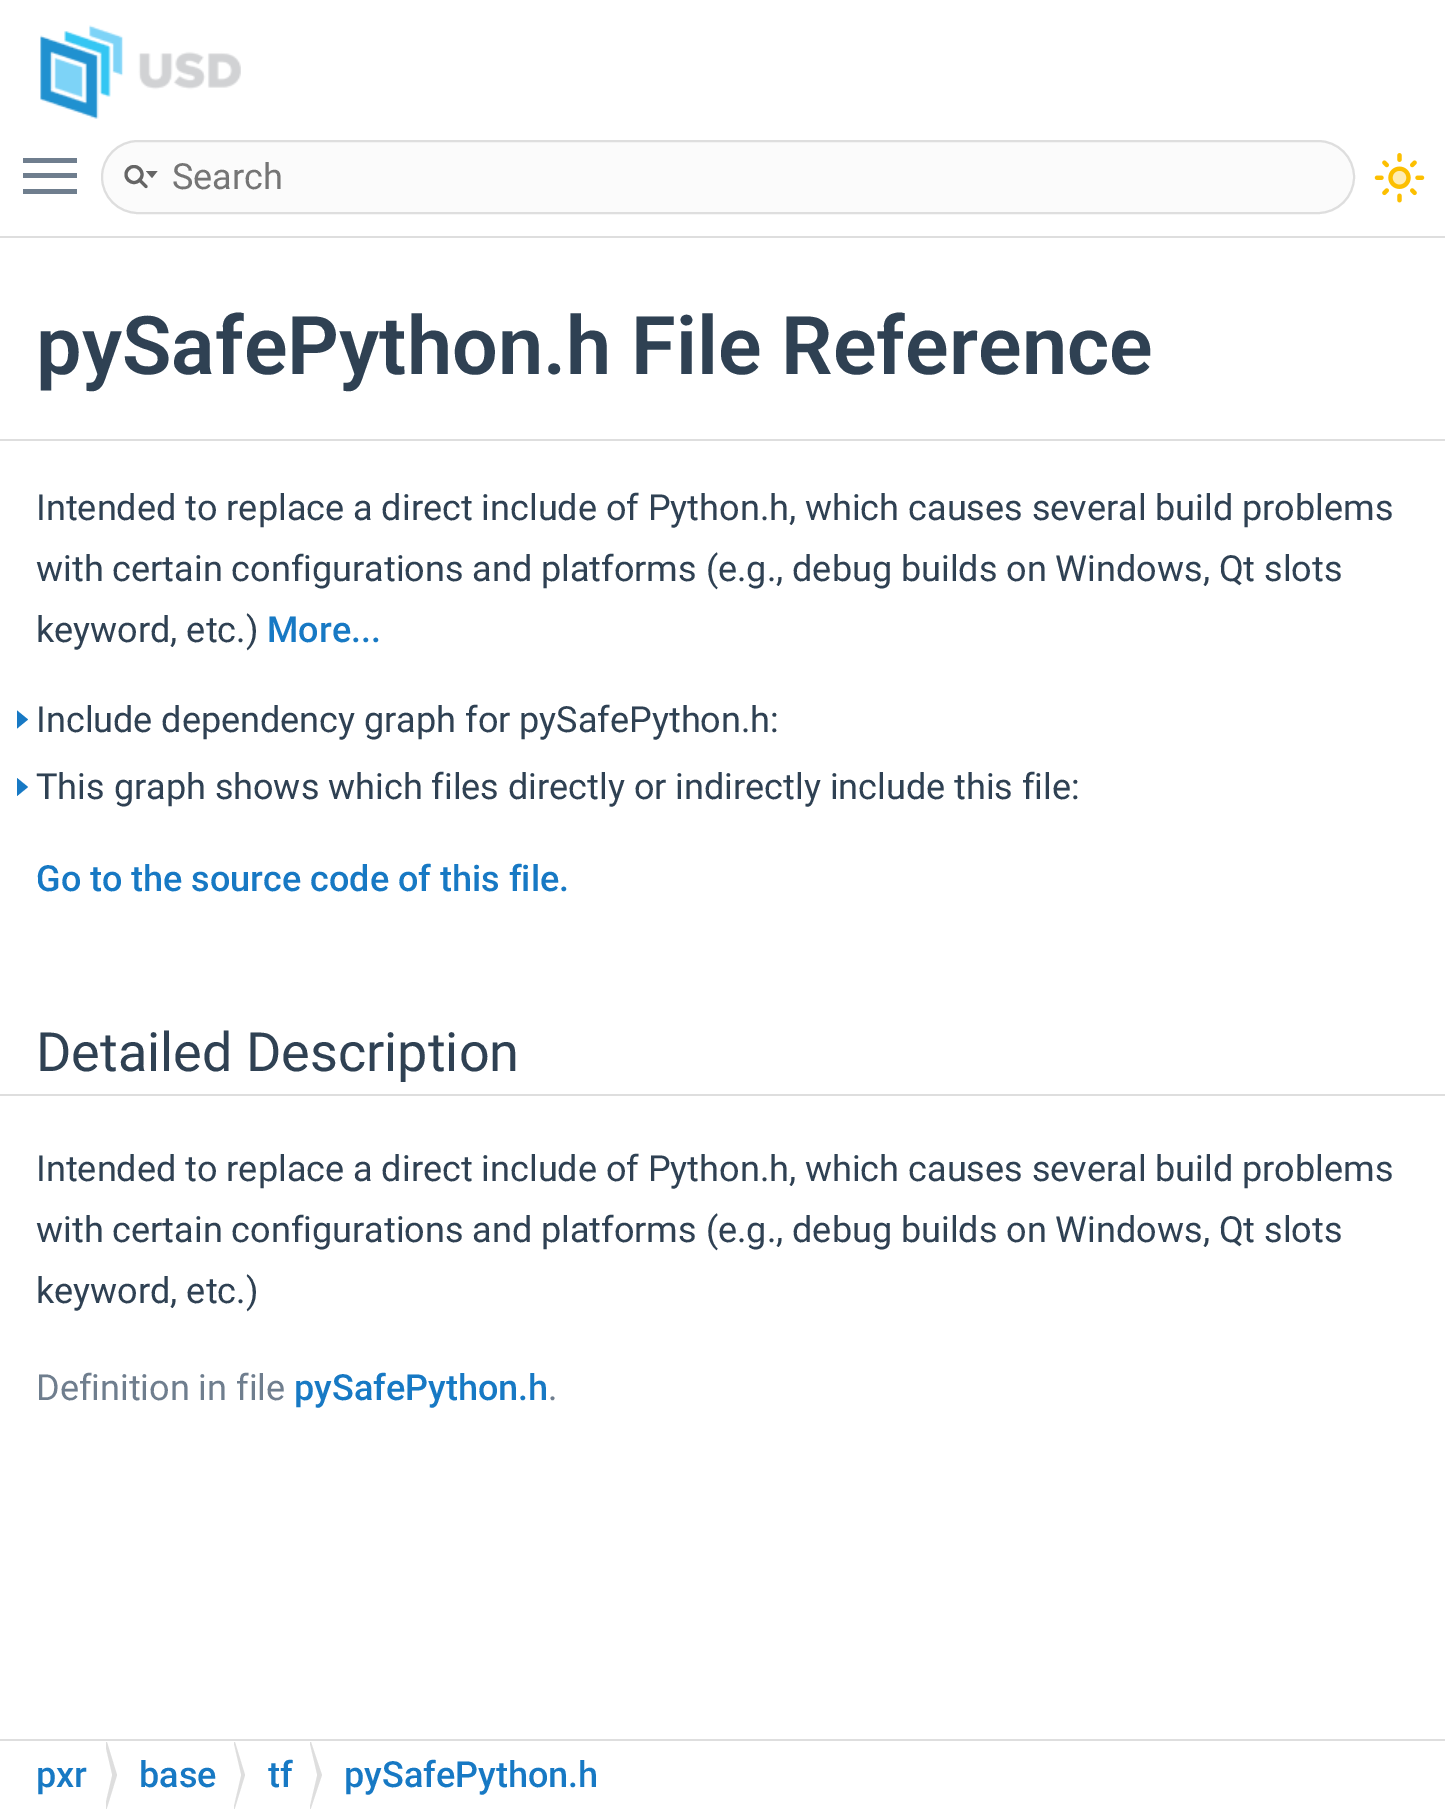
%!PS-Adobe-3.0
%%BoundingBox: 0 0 1445 1809
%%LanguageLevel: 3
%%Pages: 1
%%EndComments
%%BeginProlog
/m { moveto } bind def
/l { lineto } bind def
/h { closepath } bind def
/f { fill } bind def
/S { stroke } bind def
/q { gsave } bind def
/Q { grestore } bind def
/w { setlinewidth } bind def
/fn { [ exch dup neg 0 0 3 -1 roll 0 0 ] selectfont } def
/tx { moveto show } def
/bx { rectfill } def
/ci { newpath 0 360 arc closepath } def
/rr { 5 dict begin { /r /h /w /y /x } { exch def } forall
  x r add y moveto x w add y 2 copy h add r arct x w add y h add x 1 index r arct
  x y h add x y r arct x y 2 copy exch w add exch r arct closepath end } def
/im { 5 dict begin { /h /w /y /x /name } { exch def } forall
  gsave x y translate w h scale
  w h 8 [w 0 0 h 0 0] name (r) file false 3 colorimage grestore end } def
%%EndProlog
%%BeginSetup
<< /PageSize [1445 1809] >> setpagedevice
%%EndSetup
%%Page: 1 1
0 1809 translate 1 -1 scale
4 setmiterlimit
1 setgray
0 0 1445 1809 bx
0.871 setgray
0 236 1445 2 bx
(image0.raw) 40 25 201 94 im
0.435 0.494 0.557 setrgbcolor
23 173 54 5 bx
23 158 54 5 bx
23 189 54 5 bx
0.984 setgray
102 141 1252 72 36 rr q f Q
0.871 setgray
2 w
S
0.396 setgray
3.1 w
134 174.5 8 ci S
146 171 m 152 178 l 157.5 171 l h f
1 setlinecap
139.5 180 m 146 186.5 l S
/Roboto-Regular 36 fn
0.459 setgray
(Search) 172 189 tx
(image1.raw) 1374 153 51 50 im
0.871 setgray
0 439 1445 2 bx
/Roboto-SemiBold 81 fn
0.184 0.255 0.325 setrgbcolor
(pySafePython.h File Reference) 36 374 tx
/Roboto-Regular 36 fn
(Intended to replace a direct include of Python.h, which causes several build problems) 36 520 tx
(with certain configurations and platforms \(e.g., debug builds on Windows, Qt slots) 36 581 tx
(keyword, etc.\)) 36 642 tx
/Roboto-Medium 36 fn
0.09 0.475 0.769 setrgbcolor
(More...) 267 642 tx
17 728.5 m 17 710.5 l 28 719.5 l h f
/Roboto-Regular 36 fn
0.184 0.255 0.325 setrgbcolor
(Include dependency graph for pySafePython.h:) 36 732 tx
0.09 0.475 0.769 setrgbcolor
17 796 m 17 778 l 28 787 l h f
0.184 0.255 0.325 setrgbcolor
(This graph shows which files directly or indirectly include this file:) 36 799 tx
/Roboto-Medium 36 fn
0.09 0.475 0.769 setrgbcolor
(Go to the source code of this file.) 36 891 tx
0.871 setgray
-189 1006 m -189 1096 l 1186 1096 l 1186 1094 l 36 1094 l 36 1006 l h f
261 1094 m 261 1096 l 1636 1096 l 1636 1006 l 1411 1006 l 1411 1094 l h f
1 setgray
-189 1004 m -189 1094 l 1186 1094 l 36 1094 l 36 1004 l h f
261 1094 m 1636 1094 l 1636 1004 l 1411 1004 l 1411 1094 l h f
/Roboto-Regular 54 fn
0.184 0.255 0.325 setrgbcolor
(Detailed Description) 36 1071 tx
/Roboto-Regular 36 fn
(Intended to replace a direct include of Python.h, which causes several build problems) 36 1181 tx
(with certain configurations and platforms \(e.g., debug builds on Windows, Qt slots) 36 1242 tx
(keyword, etc.\)) 36 1303 tx
0.435 0.494 0.557 setrgbcolor
(Definition in file) 36 1400 tx
/Roboto-Medium 36 fn
0.09 0.475 0.769 setrgbcolor
(pySafePython.h) 294 1400 tx
/Roboto-Regular 36 fn
0.435 0.494 0.557 setrgbcolor
(.) 548 1400 tx
0.871 setgray
0 1739 1445 2 bx
/Roboto-Medium 36 fn
0.09 0.475 0.769 setrgbcolor
(pxr) 36 1787 tx
q
0 1742 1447 67 rectclip
0.871 setgray
106 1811 m 106 1739 l 117 1775 l h f
1 setgray
101 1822 m 101 1728 l 112 1775 l h f
Q
(base) 139 1787 tx
q
0 1742 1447 67 rectclip
0.871 setgray
234 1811 m 234 1739 l 245 1775 l h f
1 setgray
230 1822 m 230 1728 l 241 1775 l h f
Q
(tf) 268 1787 tx
q
0 1742 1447 67 rectclip
0.871 setgray
310 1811 m 310 1739 l 322 1775 l h f
1 setgray
306 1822 m 306 1728 l 317 1775 l h f
Q
(pySafePython.h) 344 1787 tx
showpage
%%EOF
